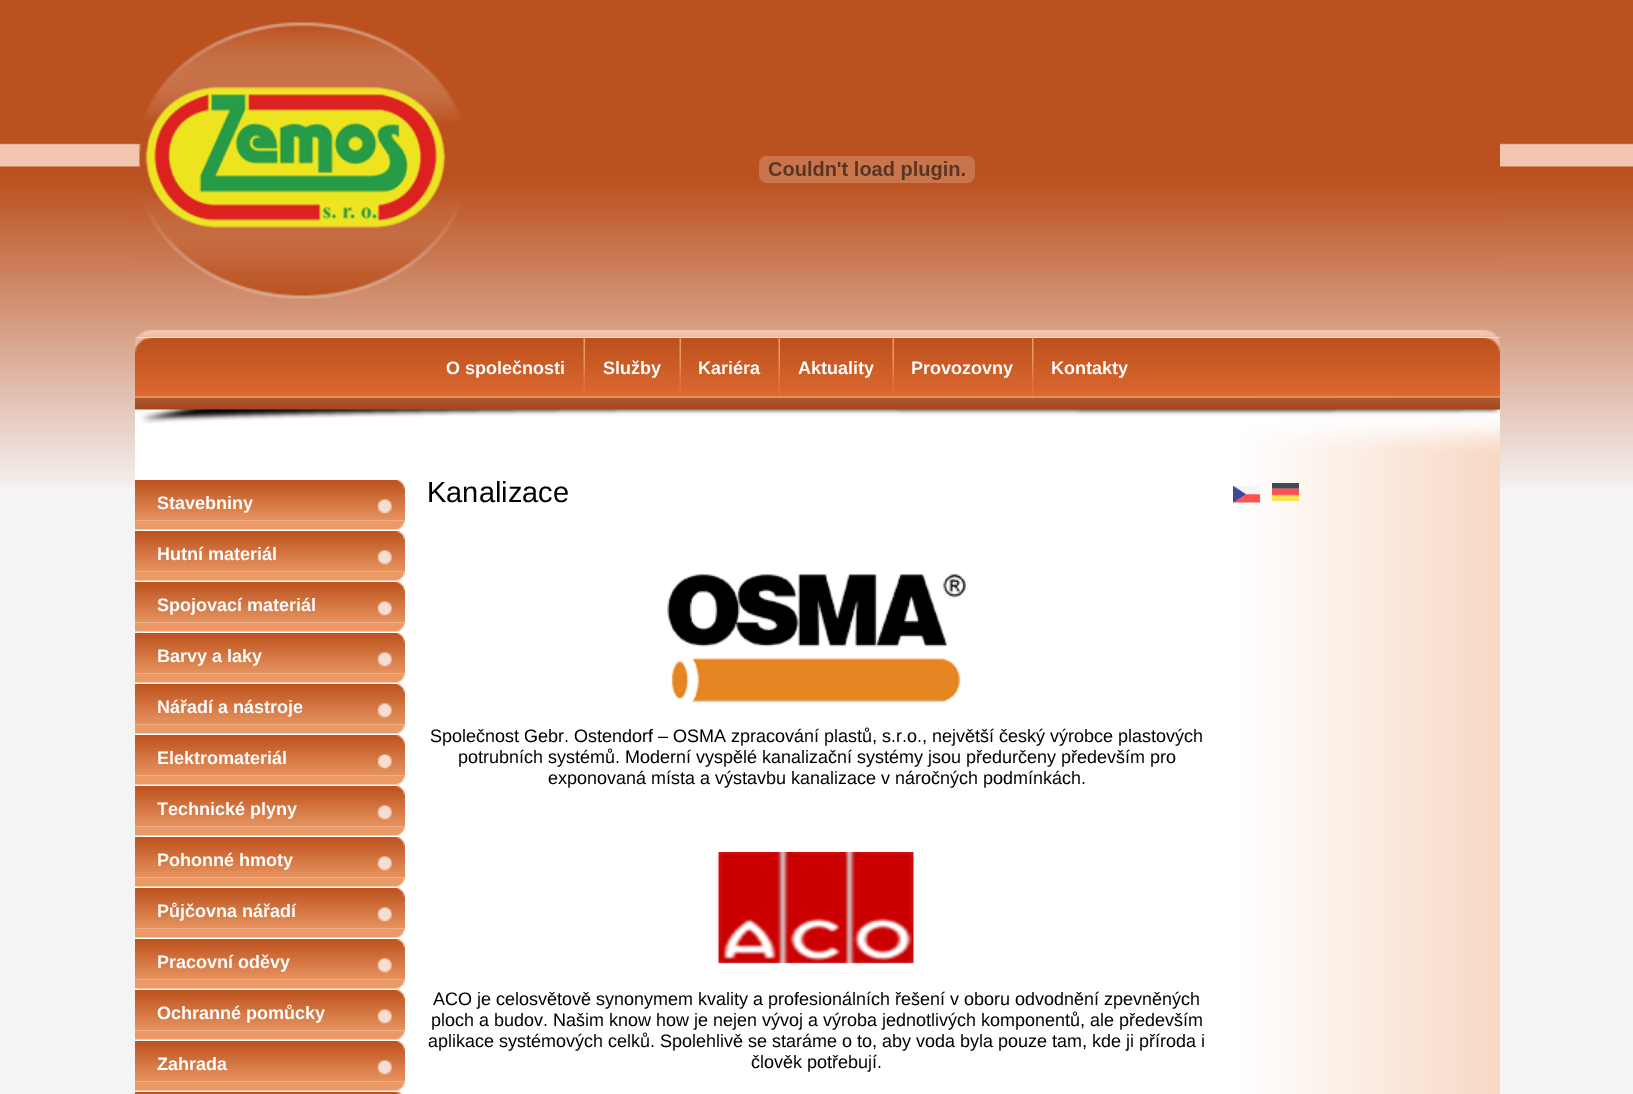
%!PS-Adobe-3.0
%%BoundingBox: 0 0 1633 1094
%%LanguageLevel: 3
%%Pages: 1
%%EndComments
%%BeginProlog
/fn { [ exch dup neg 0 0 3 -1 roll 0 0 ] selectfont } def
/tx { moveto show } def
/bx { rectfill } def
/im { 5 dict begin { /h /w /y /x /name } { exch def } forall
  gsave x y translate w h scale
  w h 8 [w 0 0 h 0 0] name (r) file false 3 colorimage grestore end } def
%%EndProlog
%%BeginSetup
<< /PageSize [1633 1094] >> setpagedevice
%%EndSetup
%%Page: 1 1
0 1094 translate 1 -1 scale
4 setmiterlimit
0.957 setgray
0 0 1633 1094 bx
(image0.raw) 0 0 1633 487 im
1 setgray
135 337 1365 1 bx
(image1.raw) 135 0 1365 338 im
(image2.raw) 759 156 216 27 im
(image3.raw) 135 338 1365 59 im
/LiberationSans-Bold 18 fn
(O společnosti) 446 374 tx
(image6.raw) 135 397 1365 697 im
(image7.raw) 135 397 1365 53 im
(image4.raw) 583 337 2 61 im
(Služby) 603 374 tx
(image4.raw) 679 337 2 61 im
(Kariéra) 698 374 tx
(image4.raw) 778 337 2 61 im
(Aktuality) 798 374 tx
(image4.raw) 892 337 2 61 im
(Provozovny) 911 374 tx
(image5.raw) 1032 337 2 61 im
(Kontakty) 1051 374 tx
/LiberationSans-Regular 29 fn
0 setgray
(Kanalizace) 427 502 tx
(image8.raw) 667 574 299 128 im
/LiberationSans-Regular 18 fn
(Společnost Gebr. Ostendorf – OSMA zpracování plastů, s.r.o., největší český výrobce plastových) 430 742 tx
(potrubních systémů. Moderní vyspělé kanalizační systémy jsou předurčeny především pro) 458 763 tx
(exponovaná místa a výstavbu kanalizace v náročných podmínkách.) 548 784 tx
(image9.raw) 718 852 196 112 im
(ACO je celosvětově synonymem kvality a profesionálních řešení v oboru odvodnění zpevněných) 433 1005 tx
(ploch a budov. Našim know how je nejen vývoj a výroba jednotlivých komponentů, ale především) 431 1026 tx
(aplikace systémových celků. Spolehlivě se staráme o to, aby voda byla pouze tam, kde ji příroda i) 428 1047 tx
(člověk potřebují.) 751 1068 tx
(image10.raw) 1233 486 27 17 im
(image11.raw) 1272 483 27 18 im
(image12.raw) 135 520 270 10 im
(image13.raw) 135 480 270 41 im
/LiberationSans-Bold 18 fn
1 setgray
(Stavebniny) 157 509 tx
(image12.raw) 135 571 270 10 im
(image13.raw) 135 531 270 41 im
(Hutní materiál) 157 560 tx
(image12.raw) 135 622 270 10 im
(image13.raw) 135 582 270 41 im
(Spojovací materiál) 157 611 tx
(image12.raw) 135 673 270 10 im
(image13.raw) 135 633 270 41 im
(Barvy a laky) 157 662 tx
(image12.raw) 135 724 270 10 im
(image13.raw) 135 684 270 41 im
(Nářadí a nástroje) 157 713 tx
(image12.raw) 135 775 270 10 im
(image13.raw) 135 735 270 41 im
(Elektromateriál) 157 764 tx
(image12.raw) 135 826 270 10 im
(image13.raw) 135 786 270 41 im
(Technické plyny) 157 815 tx
(image12.raw) 135 877 270 10 im
(image13.raw) 135 837 270 41 im
(Pohonné hmoty) 157 866 tx
(image12.raw) 135 928 270 10 im
(image13.raw) 135 888 270 41 im
(Půjčovna nářadí) 157 917 tx
(image12.raw) 135 979 270 10 im
(image13.raw) 135 939 270 41 im
(Pracovní oděvy) 157 968 tx
(image12.raw) 135 1030 270 10 im
(image13.raw) 135 990 270 41 im
(Ochranné pomůcky) 157 1019 tx
(image12.raw) 135 1081 270 10 im
(image13.raw) 135 1041 270 41 im
(Zahrada) 157 1070 tx
(image14.raw) 135 1092 268 2 im
showpage
%%EOF
